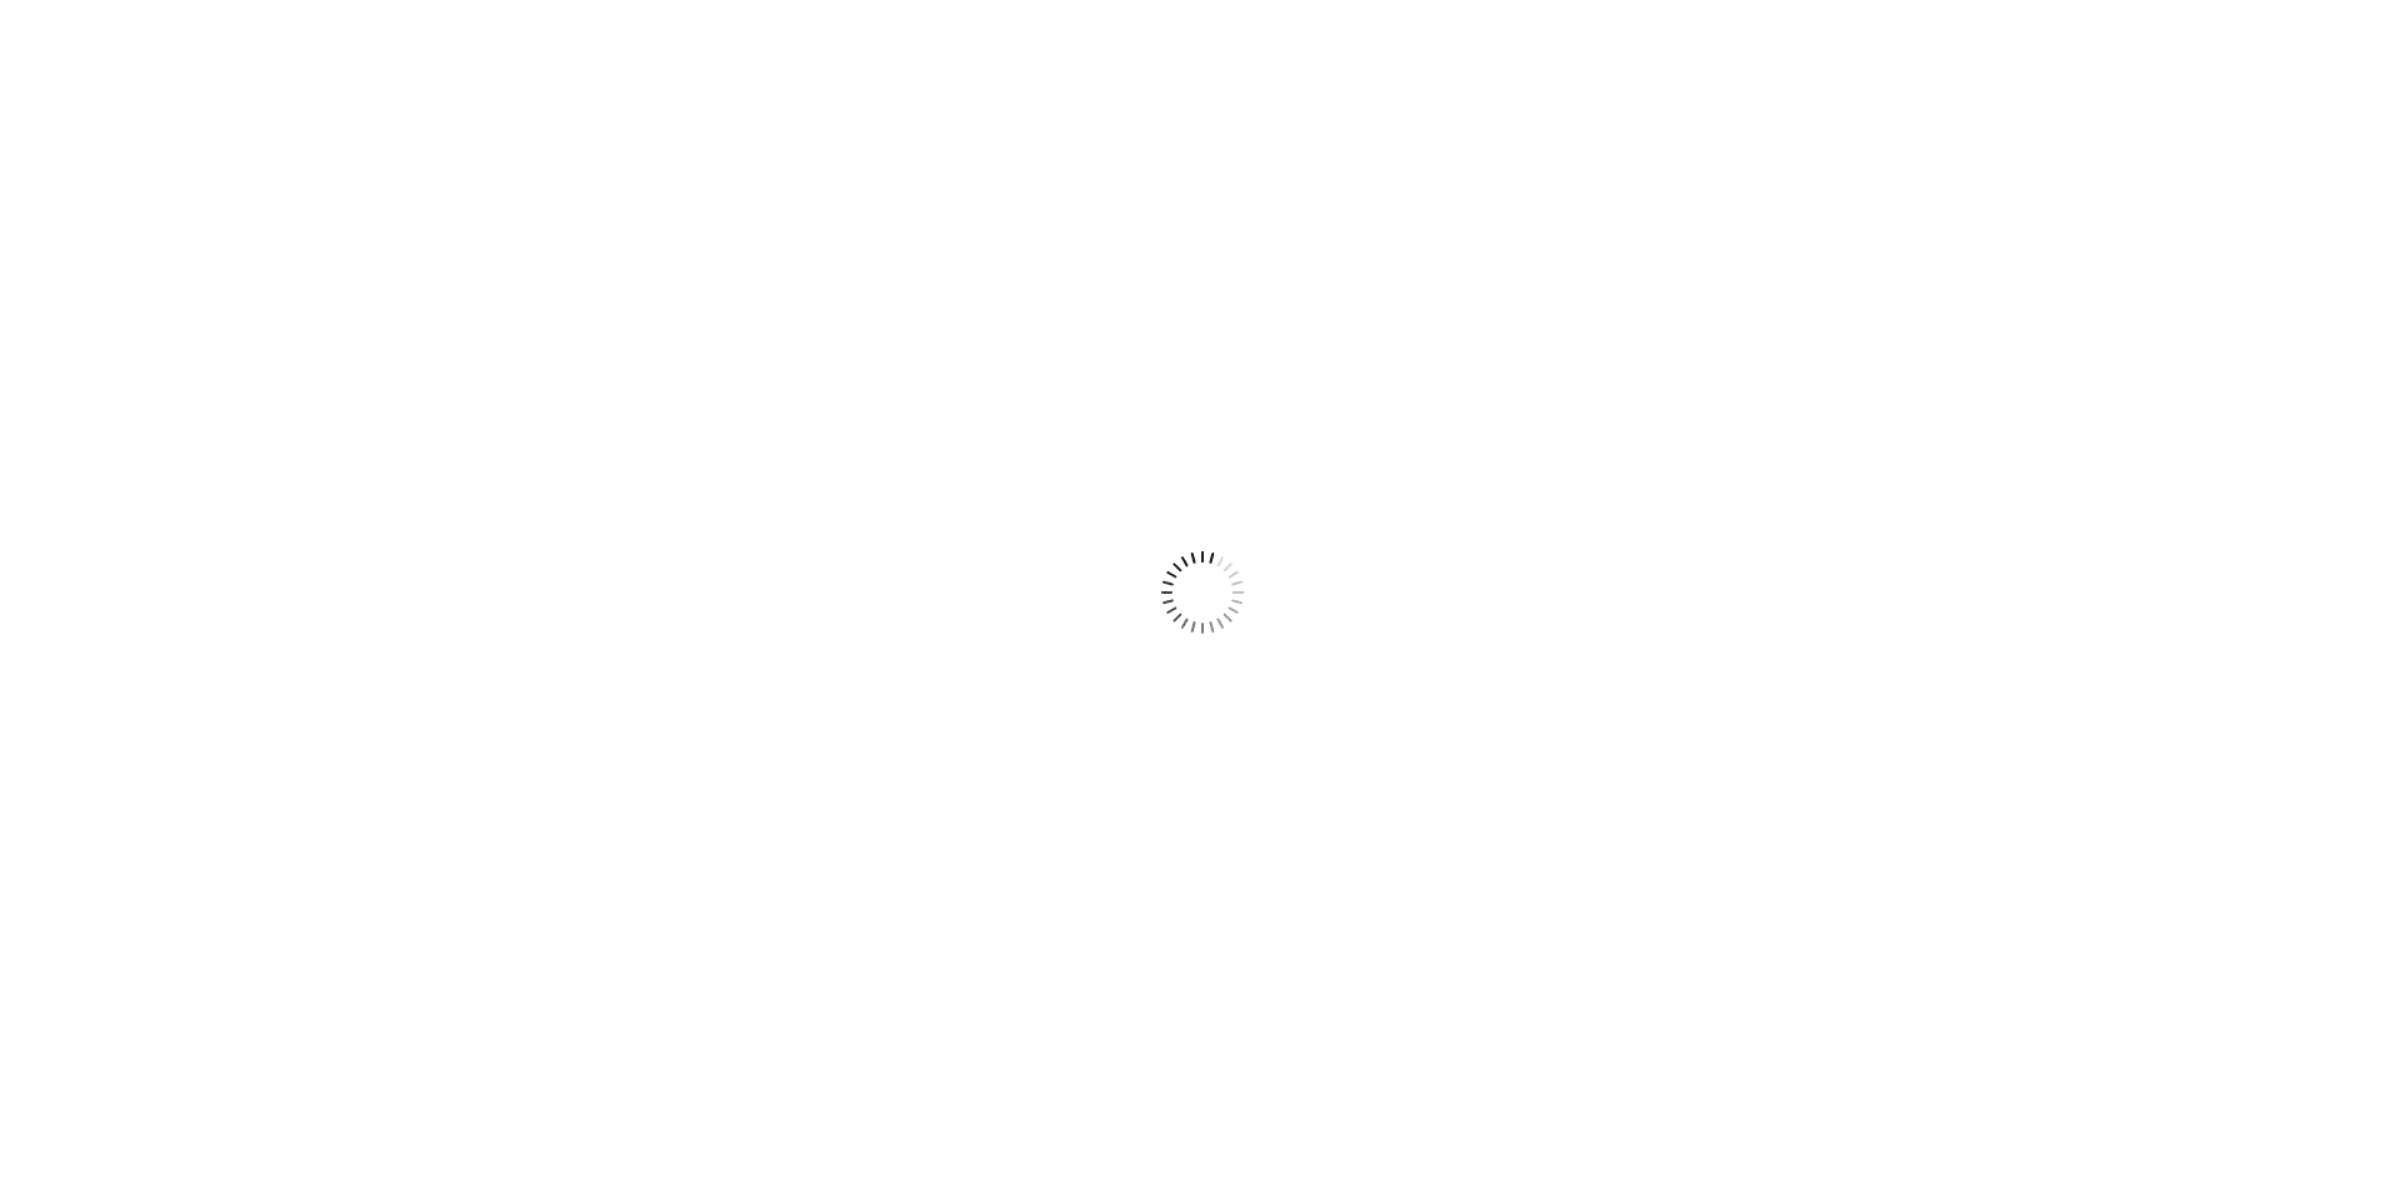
%!PS-Adobe-3.0
%%BoundingBox: 0 0 2404 1185
%%LanguageLevel: 3
%%Pages: 1
%%EndComments
%%BeginProlog
/bx { rectfill } def
/im { 5 dict begin { /h /w /y /x /name } { exch def } forall
  gsave x y translate w h scale
  w h 8 [w 0 0 h 0 0] name (r) file false 3 colorimage grestore end } def
%%EndProlog
%%BeginSetup
<< /PageSize [2404 1185] >> setpagedevice
%%EndSetup
%%Page: 1 1
0 1185 translate 1 -1 scale
4 setmiterlimit
1 setgray
0 0 2404 1185 bx
(image0.raw) 1161 551 83 83 im
showpage
%%EOF
